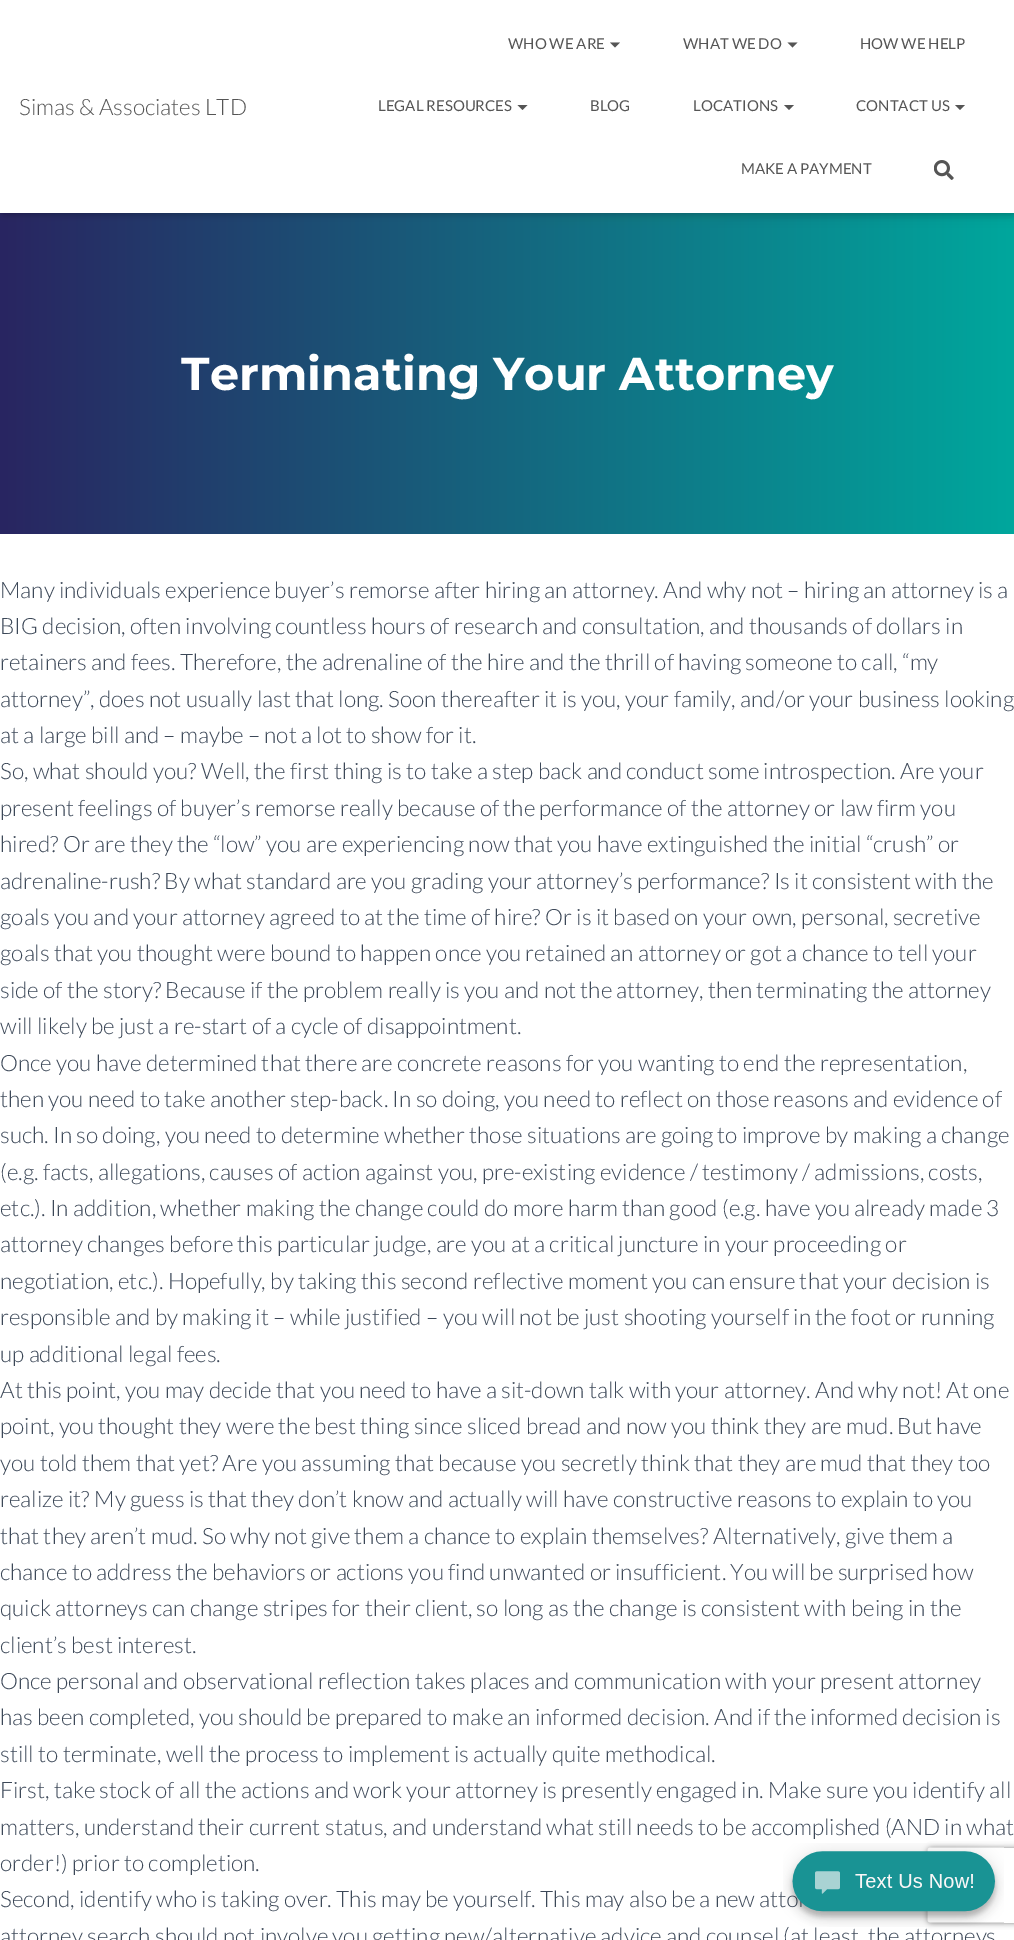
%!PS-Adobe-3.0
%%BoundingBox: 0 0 1014 1940
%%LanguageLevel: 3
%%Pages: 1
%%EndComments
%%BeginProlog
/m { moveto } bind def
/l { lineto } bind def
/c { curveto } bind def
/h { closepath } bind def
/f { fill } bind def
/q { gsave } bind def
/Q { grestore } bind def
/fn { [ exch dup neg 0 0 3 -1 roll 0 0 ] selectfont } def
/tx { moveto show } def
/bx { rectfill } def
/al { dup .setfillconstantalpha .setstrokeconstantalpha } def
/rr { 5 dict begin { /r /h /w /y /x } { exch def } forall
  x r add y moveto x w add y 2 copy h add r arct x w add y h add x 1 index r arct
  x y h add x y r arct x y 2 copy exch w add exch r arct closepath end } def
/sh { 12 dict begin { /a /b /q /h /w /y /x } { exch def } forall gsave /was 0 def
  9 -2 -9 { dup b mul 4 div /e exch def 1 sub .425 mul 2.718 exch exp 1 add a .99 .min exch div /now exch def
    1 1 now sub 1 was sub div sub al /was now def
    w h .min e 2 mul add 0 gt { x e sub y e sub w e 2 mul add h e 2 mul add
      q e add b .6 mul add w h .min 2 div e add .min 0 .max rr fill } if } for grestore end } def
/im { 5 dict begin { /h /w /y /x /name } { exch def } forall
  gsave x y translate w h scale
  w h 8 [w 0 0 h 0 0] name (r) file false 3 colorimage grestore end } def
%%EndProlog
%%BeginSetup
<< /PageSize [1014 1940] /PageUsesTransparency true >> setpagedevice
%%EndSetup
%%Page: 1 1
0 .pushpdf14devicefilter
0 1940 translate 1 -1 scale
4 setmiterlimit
1 setgray
0 0 1014 1940 bx
q 0 213 m 1014 213 l 1014 534 l 0 534 l h clip newpath
<< /ShadingType 2 /ColorSpace /DeviceRGB /Coords [0 373 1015 373] /Extend [true true] /Function << /FunctionType 2 /Domain [0 1] /C0 [0.161 0.145 0.38] /C1 [0 0.655 0.616] /N 1 >> >> shfill Q
0 setgray
3 8 1010 207 0 3 0.1 sh
0 1 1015 213 0 6 0.12 sh
8 9 1000 197 0 6 0.42 sh
1 setgray
0 0 1014 213 bx
/Lato-Light 22.5 fn
0.333 setgray
(Simas & Associates LTD) 19 115 tx
/Lato-Regular 15 fn
(WHO WE ARE) 508 49 tx
610 42.5 m 620 42.5 l 615 47.5 l h f
(WHAT WE DO) 683 49 tx
787.5 42.5 m 797.5 42.5 l 792.5 47.5 l h f
(HOW WE HELP) 860 49 tx
(LEGAL RESOURCES) 378 111 tx
517.5 105 m 527.5 105 l 522.5 110 l h f
(BLOG) 590 111 tx
(LOCATIONS) 693 111 tx
784 105 m 794 105 l 789 110 l h f
(CONTACT US) 856 111 tx
955 105 m 965 105 l 960 110 l h f
(MAKE A PAYMENT) 741 174 tx
(image0.raw) 934 160 20 20 im
/Montserrat-Bold 46.25 fn
1 setgray
(Terminating Your Attorney) 181 390 tx
/Lato-Light 22.5 fn
0.235 0.282 0.345 setrgbcolor
(Many individuals experience buyer’s remorse after hiring an attorney. And why not – hiring an attorney is a) 0 598 tx
(BIG decision, often involving countless hours of research and consultation, and thousands of dollars in) 0 634 tx
(retainers and fees. Therefore, the adrenaline of the hire and the thrill of having someone to call, “my) 0 670 tx
(attorney”, does not usually last that long. Soon thereafter it is you, your family, and/or your business looking) 0 707 tx
(at a large bill and – maybe – not a lot to show for it.) 0 743 tx
(So, what should you? Well, the first thing is to take a step back and conduct some introspection. Are your) 0 779 tx
(present feelings of buyer’s remorse really because of the performance of the attorney or law firm you) 0 816 tx
(hired? Or are they the “low” you are experiencing now that you have extinguished the initial “crush” or) 0 852 tx
(adrenaline-rush? By what standard are you grading your attorney’s performance? Is it consistent with the) 0 889 tx
(goals you and your attorney agreed to at the time of hire? Or is it based on your own, personal, secretive) 0 925 tx
(goals that you thought were bound to happen once you retained an attorney or got a chance to tell your) 0 961 tx
(side of the story? Because if the problem really is you and not the attorney, then terminating the attorney) 0 998 tx
(will likely be just a re-start of a cycle of disappointment.) 0 1034 tx
(Once you have determined that there are concrete reasons for you wanting to end the representation,) 0 1071 tx
(then you need to take another step-back. In so doing, you need to reflect on those reasons and evidence of) 0 1107 tx
(such. In so doing, you need to determine whether those situations are going to improve by making a change) 0 1143 tx
(\(e.g. facts, allegations, causes of action against you, pre-existing evidence / testimony / admissions, costs,) 0 1180 tx
(etc.\). In addition, whether making the change could do more harm than good \(e.g. have you already made 3) 0 1216 tx
(attorney changes before this particular judge, are you at a critical juncture in your proceeding or) 0 1252 tx
(negotiation, etc.\). Hopefully, by taking this second reflective moment you can ensure that your decision is) 0 1289 tx
(responsible and by making it – while justified – you will not be just shooting yourself in the foot or running) 0 1325 tx
(up additional legal fees.) 0 1362 tx
(At this point, you may decide that you need to have a sit-down talk with your attorney. And why not! At one) 0 1398 tx
(point, you thought they were the best thing since sliced bread and now you think they are mud. But have) 0 1434 tx
(you told them that yet? Are you assuming that because you secretly think that they are mud that they too) 0 1471 tx
(realize it? My guess is that they don’t know and actually will have constructive reasons to explain to you) 0 1507 tx
(that they aren’t mud. So why not give them a chance to explain themselves? Alternatively, give them a) 0 1544 tx
(chance to address the behaviors or actions you find unwanted or insufficient. You will be surprised how) 0 1580 tx
(quick attorneys can change stripes for their client, so long as the change is consistent with being in the) 0 1616 tx
(client’s best interest.) 0 1653 tx
(Once personal and observational reflection takes places and communication with your present attorney) 0 1689 tx
(has been completed, you should be prepared to make an informed decision. And if the informed decision is) 0 1725 tx
(still to terminate, well the process to implement is actually quite methodical.) 0 1762 tx
(First, take stock of all the actions and work your attorney is presently engaged in. Make sure you identify all) 0 1798 tx
(matters, understand their current status, and understand what still needs to be accomplished \(AND in what) 0 1835 tx
(order!\) prior to completion.) 0 1871 tx
(Second, identify who is taking over. This may be yourself. This may also be a new atto) 0 1907 tx
(attorney search should not involve you getting new/alternative advice and counsel \(at least, the attorneys) 0 1944 tx
q
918 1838 m 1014 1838 l 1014 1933 l 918 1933 l h 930.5 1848 m 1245.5 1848 l 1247 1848 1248 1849 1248 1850.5 c 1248 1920.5 l 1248 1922 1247 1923 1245.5 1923 c 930.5 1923 l 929 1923 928 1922 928 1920.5 c 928 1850.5 l 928 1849 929 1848 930.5 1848 c h eoclip newpath
0.502 setgray
928 1848 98 75 2.5 3 1 sh
Q
(image1.raw) 783 1843 221 84 im
.poppdf14devicefilter showpage
%%EOF
